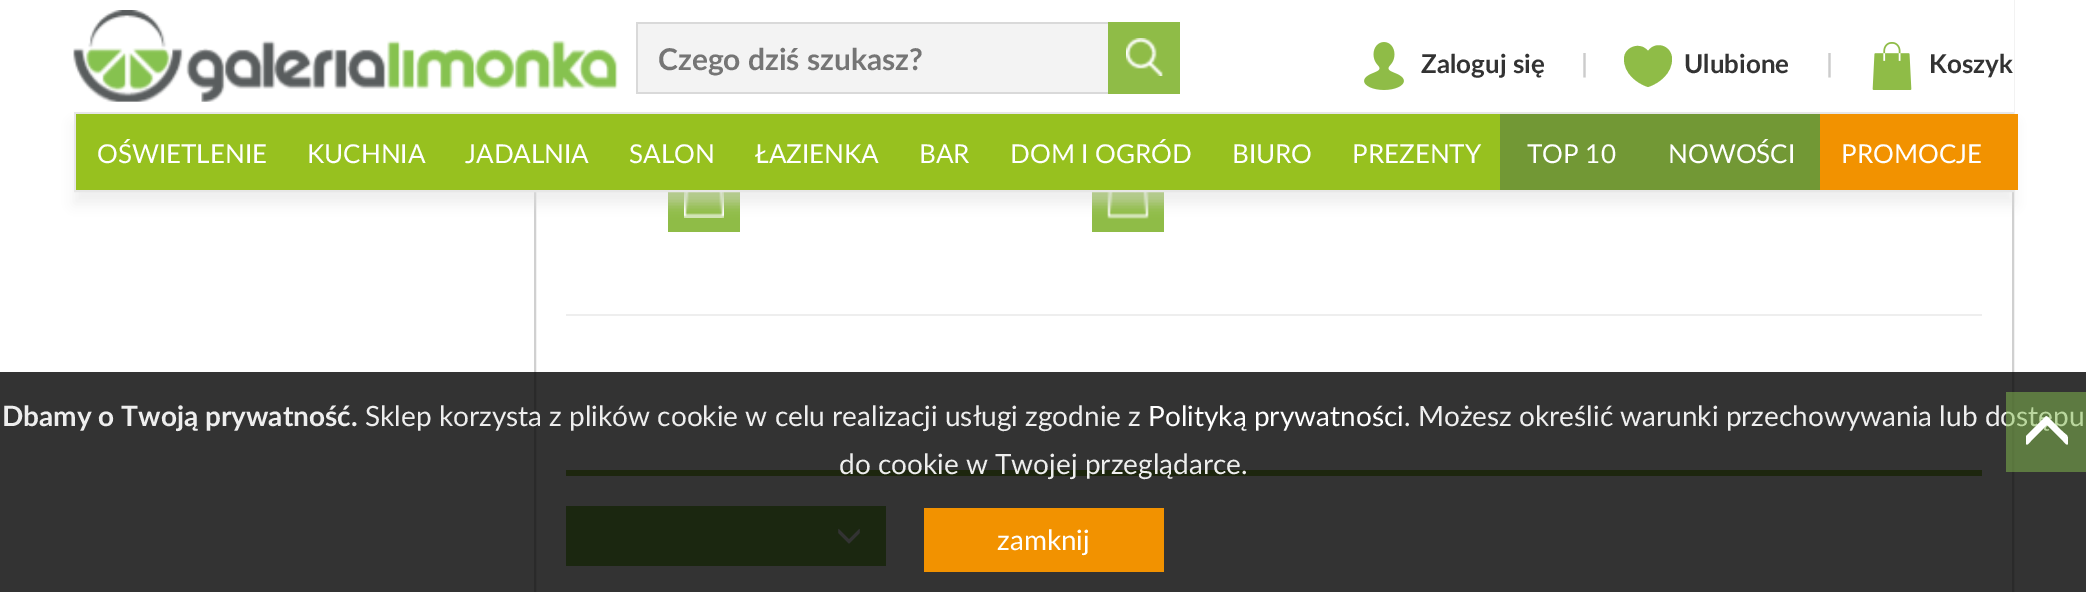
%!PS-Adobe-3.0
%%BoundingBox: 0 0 2086 592
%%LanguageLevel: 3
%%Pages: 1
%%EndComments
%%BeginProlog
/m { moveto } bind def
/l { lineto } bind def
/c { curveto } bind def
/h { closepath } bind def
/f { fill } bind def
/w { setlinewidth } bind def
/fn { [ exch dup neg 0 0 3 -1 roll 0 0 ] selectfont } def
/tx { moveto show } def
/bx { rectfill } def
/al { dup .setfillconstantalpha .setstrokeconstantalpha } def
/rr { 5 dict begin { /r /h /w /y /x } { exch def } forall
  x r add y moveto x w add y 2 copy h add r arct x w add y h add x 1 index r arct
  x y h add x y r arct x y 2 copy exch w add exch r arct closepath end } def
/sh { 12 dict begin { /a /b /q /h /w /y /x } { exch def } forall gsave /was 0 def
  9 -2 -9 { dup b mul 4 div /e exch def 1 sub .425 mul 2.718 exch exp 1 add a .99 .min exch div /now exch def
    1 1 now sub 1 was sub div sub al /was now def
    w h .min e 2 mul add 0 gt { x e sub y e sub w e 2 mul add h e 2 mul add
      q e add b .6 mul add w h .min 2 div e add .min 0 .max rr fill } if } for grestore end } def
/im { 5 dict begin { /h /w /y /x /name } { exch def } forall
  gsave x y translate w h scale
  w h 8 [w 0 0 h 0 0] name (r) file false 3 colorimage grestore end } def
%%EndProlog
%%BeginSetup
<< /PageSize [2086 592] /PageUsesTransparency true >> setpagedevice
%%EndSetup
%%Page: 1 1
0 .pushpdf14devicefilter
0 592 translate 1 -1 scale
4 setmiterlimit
1 setgray
0 0 2086 592 bx
0.816 setgray
2 w
535 -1 1478 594 rectstroke
0.561 0.737 0.278 setrgbcolor
668 192 72 40 bx
(image0.raw) 684 192 40 26 im
1092 192 72 40 bx
(image1.raw) 1107 192 42 27 im
0.933 setgray
566 314 1416 2 bx
0.561 0.737 0.278 setrgbcolor
566 470 1416 6 bx
0.522 0.761 0.31 setrgbcolor
566 506 320 60 bx
(image2.raw) 838 528 22 16 im
1 setgray
534 0 1480 112 bx
(image3.raw) 73 10 545 92 im
0.953 setgray
638 24 470 68 bx
0.851 setgray
636 22 472 2 bx
636 92 472 2 bx
636 22 2 72 bx
/Lato-Bold 30 fn
0.459 setgray
(Czego dziś szukasz?) 658 70 tx
0.561 0.737 0.278 setrgbcolor
1108 22 72 72 bx
(image4.raw) 1126 38 37 38 im
(image5.raw) 1364 42 40 48 im
/Lato-Bold 26 fn
0.2 setgray
(Zaloguj się) 1421 73 tx
0.8 setgray
(|) 1581 73 tx
0.561 0.737 0.278 setrgbcolor
1672 59 m 1672 46 1656 40 1648 51 c 1640 41 1624 47 1624 59 c 1624 73 1636 83 1648 87 c 1660 83 1672 73 1672 59 c h f
0.2 setgray
(Ulubione) 1684 73 tx
0.8 setgray
(|) 1826 73 tx
(image6.raw) 1872 42 40 48 im
0.2 setgray
(Koszyk) 1929 73 tx
0.867 setgray
74 124 1940 80 0 6 0.5 sh
0.906 setgray
75 113 1938 78 rectstroke
0.592 0.757 0.122 setrgbcolor
76 114 1424 76 bx
/Lato-Regular 26 fn
1 setgray
(OŚWIETLENIE) 97 163 tx
(KUCHNIA) 307 163 tx
(JADALNIA) 465 163 tx
(SALON) 629 163 tx
(ŁAZIENKA) 755 163 tx
(BAR) 919 163 tx
(DOM I OGRÓD) 1010 163 tx
(BIURO) 1232 163 tx
(PREZENTY) 1352 163 tx
0.447 0.596 0.208 setrgbcolor
1500 114 320 76 bx
1 setgray
(TOP 10) 1527 163 tx
(NOWOŚCI) 1668 163 tx
0.949 0.573 0 setrgbcolor
1820 114 198 76 bx
1 setgray
(PROMOCJE) 1841 163 tx
0.8 al
0 setgray
0 372 2086 220 bx
/Lato-Regular 28 fn
1 al
0.933 setgray
(. Możesz określić warunki przechowywania lub dostępu) 1404 426 tx
0.5 al
0.529 0.753 0.31 setrgbcolor
2006 392 80 80 bx
1 al
1 setgray
2048 417 m 2061 430 l 2068 437 2068 434 2068 442 c 2068 447 2066 444 2063 441 c 2047 425 l 2031 441 l 2028 444 2026 447 2026 442 c 2026 436 l 2046 416 l h f
/Lato-Bold 28 fn
0.933 setgray
(Dbamy o Twoją prywatność.) 2 426 tx
/Lato-Regular 28 fn
(Sklep korzysta z plików cookie w celu realizacji usługi zgodnie z) 365 426 tx
1 setgray
(Polityką prywatności) 1148 426 tx
0.933 setgray
(do cookie w Twojej przeglądarce.) 839 474 tx
0.949 0.573 0 setrgbcolor
924 508 240 64 bx
1 setgray
(zamknij) 997 550 tx
.poppdf14devicefilter showpage
%%EOF
